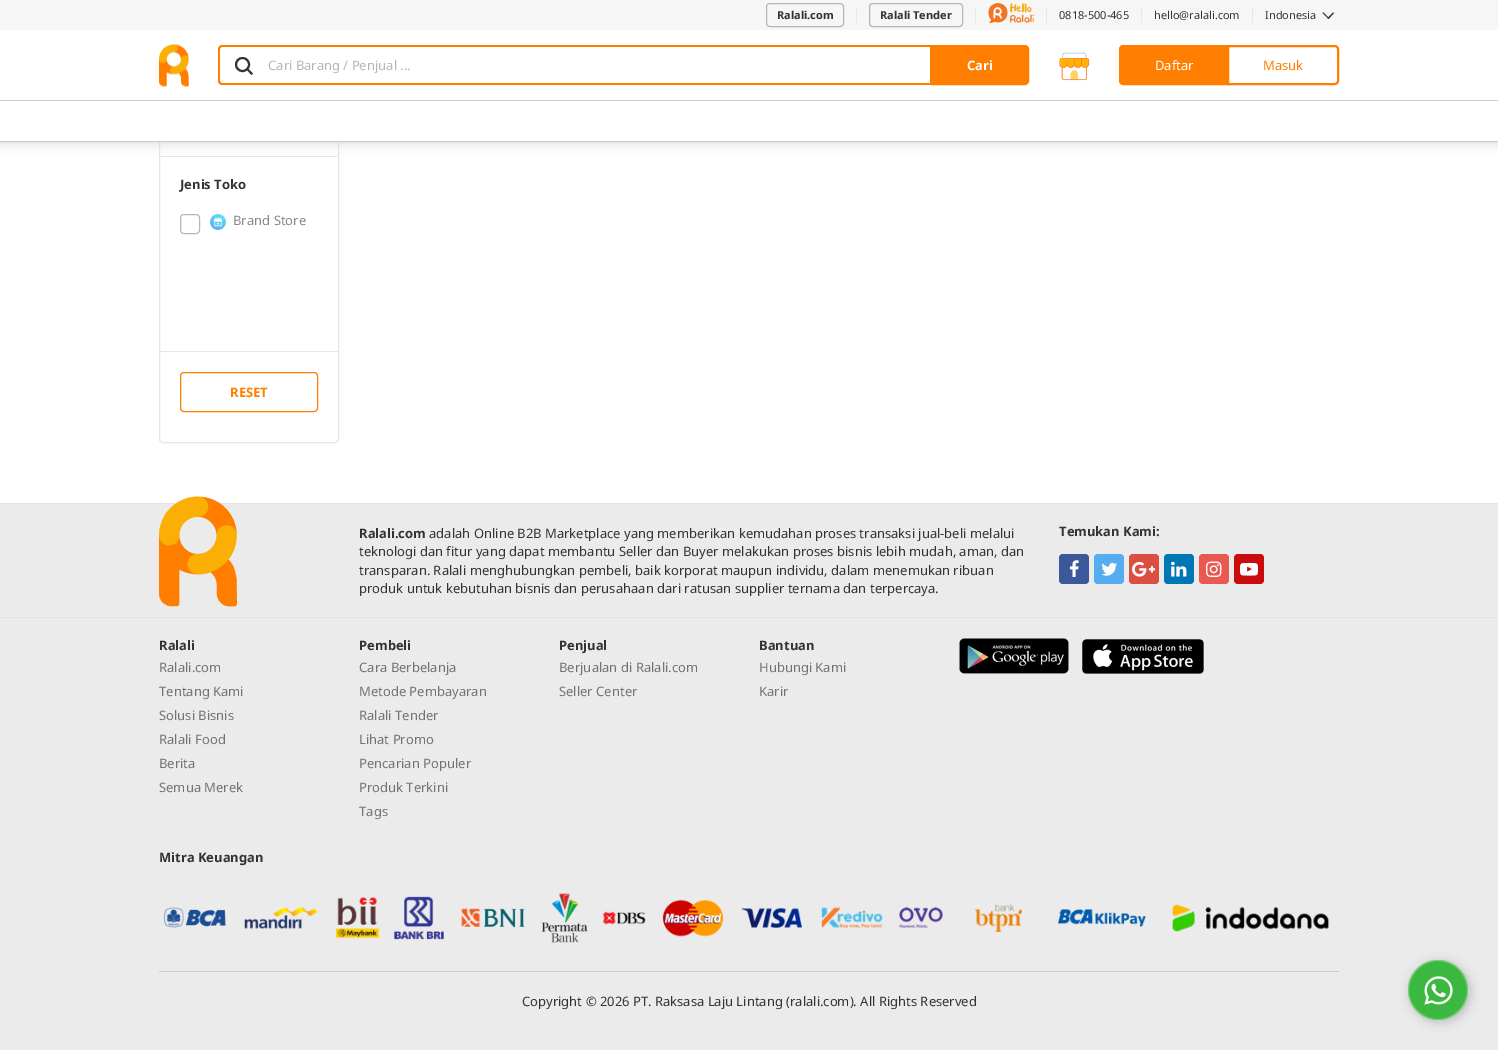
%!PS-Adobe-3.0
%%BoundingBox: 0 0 1498 1050
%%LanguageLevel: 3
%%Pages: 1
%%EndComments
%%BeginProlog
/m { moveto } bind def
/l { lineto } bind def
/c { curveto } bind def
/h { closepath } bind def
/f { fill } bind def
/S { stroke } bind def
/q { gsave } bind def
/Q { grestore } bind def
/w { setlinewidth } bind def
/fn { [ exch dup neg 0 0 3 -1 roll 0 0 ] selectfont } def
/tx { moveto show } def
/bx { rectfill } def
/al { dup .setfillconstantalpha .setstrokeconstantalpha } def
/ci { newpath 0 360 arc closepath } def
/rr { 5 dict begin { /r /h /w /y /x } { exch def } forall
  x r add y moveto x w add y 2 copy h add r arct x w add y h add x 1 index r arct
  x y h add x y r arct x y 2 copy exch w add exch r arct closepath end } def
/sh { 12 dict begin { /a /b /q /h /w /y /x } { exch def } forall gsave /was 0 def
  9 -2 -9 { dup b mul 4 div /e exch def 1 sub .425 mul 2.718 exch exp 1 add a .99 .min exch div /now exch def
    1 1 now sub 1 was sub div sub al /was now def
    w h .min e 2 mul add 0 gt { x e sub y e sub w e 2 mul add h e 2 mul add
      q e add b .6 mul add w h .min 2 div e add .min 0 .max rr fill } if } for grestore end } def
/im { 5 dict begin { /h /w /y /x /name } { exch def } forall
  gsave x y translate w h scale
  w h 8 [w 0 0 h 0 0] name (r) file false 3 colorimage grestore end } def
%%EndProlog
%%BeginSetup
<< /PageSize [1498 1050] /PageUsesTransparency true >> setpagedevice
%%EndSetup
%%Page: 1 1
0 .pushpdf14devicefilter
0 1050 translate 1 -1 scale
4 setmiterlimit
1 setgray
0 0 1498 1050 bx
0.902 setgray
159.5 -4.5 179 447 3.5 rr S
160 156 178 1 bx
0.8 setgray
0 0 1498 142 0 6 1 sh
0.965 setgray
0 0 1498 30 bx
0.714 setgray
766.5 3.5 77 23 3.5 rr S
/NotoSans-Bold 11 fn
0.2 setgray
(Ralali.com) 777 19 tx
0.902 setgray
856 8 1 15 bx
0.714 setgray
869.5 3.5 93 23 3.5 rr S
0.2 setgray
(Ralali Tender) 880 19 tx
0.902 setgray
975 8 1 15 bx
(image0.raw) 988 3 46 20 im
1046 8 1 15 bx
/NotoSans-Regular 11 fn
0.2 setgray
(0818-500-465) 1059 19 tx
0.902 setgray
1141 8 1 15 bx
0.2 setgray
(hello@ralali.com) 1154 19 tx
0.902 setgray
1252 8 1 15 bx
0.2 setgray
(Indonesia) 1265 19 tx
1327.5 18 m 1333 12.5 l 1334 13 l 1328.5 19 l h f
1322.5 13 m 1323.5 12.5 l 1329 18 l 1328.5 19 l h f
1 setgray
0 30 1498 70 bx
0.8 setgray
0 100 1498 1 bx
(image1.raw) 159 44 30 43 im
1 0.494 0 setrgbcolor
222 45 m 268 45 l 268 85 l 222 85 l 220 85 218 83 218 81 c 218 49 l 218 47 220 45 222 45 c h 222 47 m 268 47 l 268 83 l 222 83 l 221 83 220 82 220 81 c 220 49 l 220 48 221 47 222 47 c h eofill
0.2 setgray
2 w
242.5 64.5 6.5 ci S
247.5 68 m 253 73.5 l 251.5 75 l 246 69 l h f
1 0.494 0 setrgbcolor
932 46 m 1025 46 l 1026.5 46 1028 47.5 1028 49 c 1028 81 l 1028 82.5 1026.5 84 1025 84 c 932 84 l h q f Q
S
268 45 664 2 bx
930 45 1 40 bx
268 83 664 2 bx
/NotoSans-Regular 13 fn
0.714 setgray
(Cari Barang / Penjual ...) 268 70 tx
/NotoSans-Bold 13 fn
1 setgray
(Cari) 967 70 tx
(image2.raw) 1059 52 31 29 im
1 0.494 0 setrgbcolor
1123 46 m 1229 46 l 1229 84 l 1123 84 l 1121.5 84 1120 82.5 1120 81 c 1120 49 l 1120 47.5 1121.5 46 1123 46 c h q f Q
S
/NotoSans-Regular 13 fn
1 setgray
(Daftar) 1155 70 tx
1228 46 m 1335 46 l 1336.5 46 1338 47.5 1338 49 c 1338 81 l 1338 82.5 1336.5 84 1335 84 c 1228 84 l h q f Q
1 0.494 0 setrgbcolor
S
(Masuk) 1263 70 tx
1 setgray
0 101 1498 40 bx
0.8 setgray
0 141 1498 1 bx
0.902 setgray
160 351 178 1 bx
/NotoSans-Bold 13 fn
0.2 setgray
(Jenis Toko) 180 189 tx
0.714 setgray
1 w
180.5 214.5 19 19 3.5 rr S
(image3.raw) 210 214 16 16 im
/NotoSans-Regular 13 fn
0.533 setgray
(Brand Store) 233 225 tx
1 0.494 0 setrgbcolor
180.5 372.5 137 39 3.5 rr S
/NotoSans-Bold 13 fn
(RESET) 230 397 tx
0.922 setgray
0 504 1498 546 bx
0.89 setgray
0 503 1498 1 bx
(image4.raw) 159 496 78 111 im
0.2 setgray
(Ralali.com) 359 538 tx
/NotoSans-Regular 13 fn
(adalah Online B2B Marketplace yang memberikan kemudahan proses transaksi jual-beli melalui) 429 538 tx
(teknologi dan fitur yang dapat membantu Seller dan Buyer melakukan proses bisnis lebih mudah, aman, dan) 359 556 tx
(transparan. Ralali menghubungkan pembeli, baik korporat maupun individu, dalam menemukan ribuan) 359 575 tx
(produk untuk kebutuhan bisnis dan perusahaan dari ratusan supplier ternama dan terpercaya.) 359 593 tx
/NotoSans-Bold 13 fn
(Temukan Kami:) 1059 536 tx
0.231 0.349 0.596 setrgbcolor
1059 554 30 30 4 rr f
(image5.raw) 1069 560 10 17 im
0.333 0.675 0.933 setrgbcolor
1094 554 30 30 4 rr f
(image6.raw) 1101 562 17 14 im
0.863 0.306 0.255 setrgbcolor
1129 554 30 30 4 rr f
(image7.raw) 1132 561 24 16 im
0 0.467 0.71 setrgbcolor
1164 554 30 30 4 rr f
(image8.raw) 1171 561 16 16 im
0.914 0.349 0.314 setrgbcolor
1199 554 30 30 4 rr f
(image9.raw) 1206 561 16 16 im
0.788 0.051 0.055 setrgbcolor
1234 554 30 30 4 rr f
(image10.raw) 1240 562 18 14 im
0.89 setgray
0 617 1498 1 bx
0.2 setgray
(Ralali) 159 650 tx
/NotoSans-Regular 13 fn
0.451 setgray
(Ralali.com) 159 672 tx
(Tentang Kami) 159 696 tx
(Solusi Bisnis) 159 720 tx
(Ralali Food) 159 744 tx
(Berita) 159 768 tx
(Semua Merek) 159 792 tx
/NotoSans-Bold 13 fn
0.2 setgray
(Pembeli) 359 650 tx
/NotoSans-Regular 13 fn
0.451 setgray
(Cara Berbelanja) 359 672 tx
(Metode Pembayaran) 359 696 tx
(Ralali Tender) 359 720 tx
(Lihat Promo) 359 744 tx
(Pencarian Populer) 359 768 tx
(Produk Terkini) 359 792 tx
(Tags) 359 816 tx
/NotoSans-Bold 13 fn
0.2 setgray
(Penjual) 559 650 tx
/NotoSans-Regular 13 fn
0.451 setgray
(Berjualan di Ralali.com) 559 672 tx
(Seller Center) 559 696 tx
/NotoSans-Bold 13 fn
0.2 setgray
(Bantuan) 759 650 tx
/NotoSans-Regular 13 fn
0.451 setgray
(Hubungi Kami) 759 672 tx
(Karir) 759 696 tx
(image11.raw) 959 638 110 36 im
(image12.raw) 1082 639 122 35 im
/NotoSans-Bold 13 fn
0.2 setgray
(Mitra Keuangan) 159 862 tx
(image13.raw) 163 907 63 21 im
(image14.raw) 244 907 74 22 im
(image15.raw) 335 896 45 43 im
(image16.raw) 394 896 50 44 im
(image17.raw) 461 908 64 20 im
(image18.raw) 541 893 47 50 im
(image19.raw) 602 911 44 14 im
(image20.raw) 662 899 62 38 im
(image21.raw) 741 907 61 22 im
(image22.raw) 821 907 62 22 im
(image23.raw) 899 907 44 22 im
(image24.raw) 975 904 47 28 im
(image25.raw) 1058 909 88 18 im
(image26.raw) 1172 904 157 28 im
0.8 setgray
159 971 1180 1 bx
/NotoSans-Regular 13 fn
0.2 setgray
(Copyright © 2026 PT. Raksasa Laju Lintang \(ralali.com\). All Rights Reserved) 522 1006 tx
0 setgray
1410 962 60 60 30 5 0.2 sh
0.235 0.722 0.255 setrgbcolor
1438 990 30 ci f
0.3 al
1 setgray
1438 990 29.5 ci S
1 al
(image27.raw) 1424 976 29 29 im
.poppdf14devicefilter showpage
%%EOF
